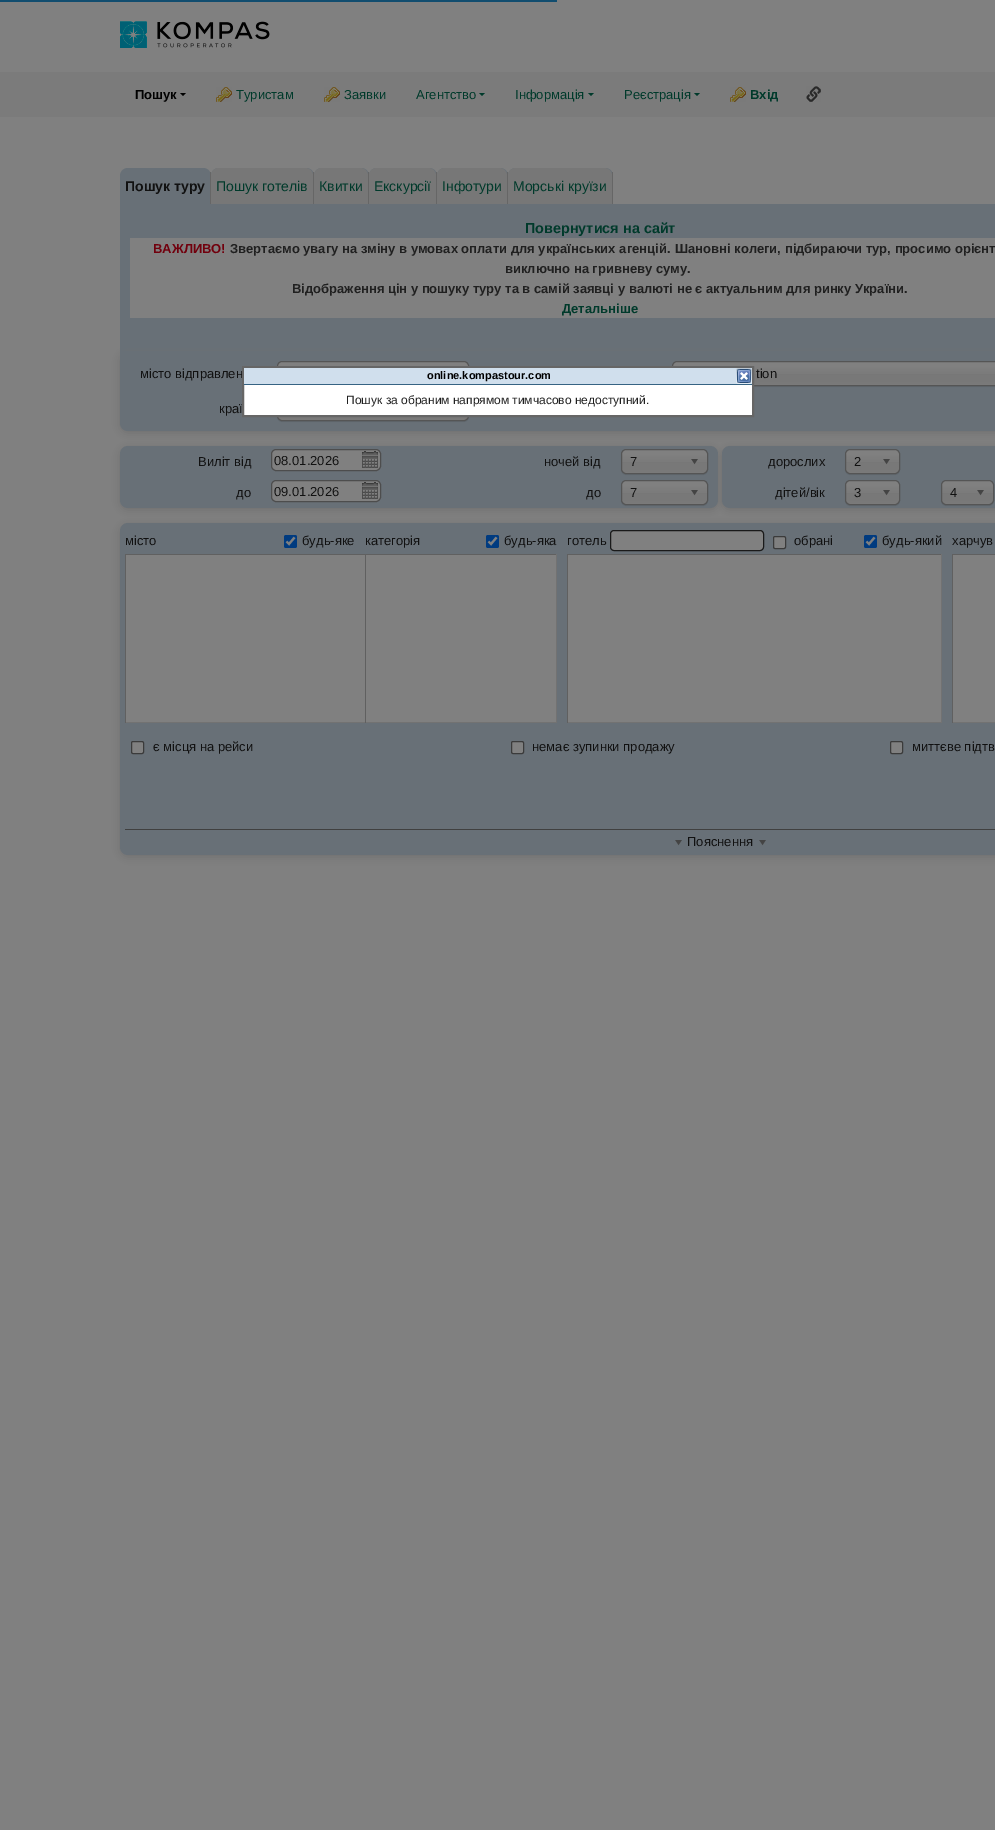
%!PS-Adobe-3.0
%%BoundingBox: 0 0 995 1830
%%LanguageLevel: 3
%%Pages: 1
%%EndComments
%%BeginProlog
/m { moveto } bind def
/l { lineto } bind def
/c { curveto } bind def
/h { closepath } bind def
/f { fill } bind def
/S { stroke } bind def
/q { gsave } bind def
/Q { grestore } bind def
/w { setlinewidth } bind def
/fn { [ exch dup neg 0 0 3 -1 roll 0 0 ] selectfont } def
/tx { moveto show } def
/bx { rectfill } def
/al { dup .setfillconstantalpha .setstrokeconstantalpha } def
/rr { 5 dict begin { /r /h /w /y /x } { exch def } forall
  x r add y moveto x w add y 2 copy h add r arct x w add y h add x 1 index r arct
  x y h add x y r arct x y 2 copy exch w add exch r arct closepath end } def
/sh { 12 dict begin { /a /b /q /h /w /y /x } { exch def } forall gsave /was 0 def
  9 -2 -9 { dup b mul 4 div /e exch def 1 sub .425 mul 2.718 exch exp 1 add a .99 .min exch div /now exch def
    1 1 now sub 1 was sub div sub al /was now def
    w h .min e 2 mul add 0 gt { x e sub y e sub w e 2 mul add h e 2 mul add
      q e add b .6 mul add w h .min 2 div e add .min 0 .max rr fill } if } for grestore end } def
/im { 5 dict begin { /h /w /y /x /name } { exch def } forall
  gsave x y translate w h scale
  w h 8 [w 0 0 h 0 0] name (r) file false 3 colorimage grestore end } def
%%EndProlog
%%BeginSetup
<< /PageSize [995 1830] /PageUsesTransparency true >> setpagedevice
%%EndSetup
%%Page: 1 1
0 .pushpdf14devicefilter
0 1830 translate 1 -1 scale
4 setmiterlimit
0.502 setgray
0 0 995 1830 bx
0.067 0.302 0.435 setrgbcolor
0 0 557 2 bx
(image0.raw) 120 21 150 27 im
0.482 setgray
0 72 995 45 bx
/LiberationSans-Bold 13 fn
0 setgray
(Пошук) 135 99 tx
180 93 m 186 93 l 183 96 l h f
(image1.raw) 216 87 16 15 im
/LiberationSans-Regular 13 fn
0 0.227 0.169 setrgbcolor
(Туристам) 236 99 tx
(image1.raw) 324 87 16 15 im
(Заявки) 344 99 tx
(Агентство) 416 99 tx
479 93 m 485 93 l 482 96 l h f
(Інформація) 515 99 tx
588 93 m 594 93 l 591 96 l h f
(Реєстрація) 624 99 tx
694 93 m 700 93 l 697 96 l h f
(image1.raw) 730 87 16 15 im
/LiberationSans-Bold 13 fn
(Вхід) 750 99 tx
(image2.raw) 806 86 15 16 im
0.408 0.439 0.467 setrgbcolor
128 168 m 203 168 l 207.5 168 211 171.5 211 176 c 211 204 l 120 204 l 120 176 l 120 171.5 123.5 168 128 168 c h f
0.4 setgray
210 172 1 32 bx
/LiberationSans-Bold 14 fn
0.067 setgray
(Пошук туру) 125 191 tx
0.408 0.439 0.467 setrgbcolor
219 168 m 306 168 l 310.5 168 314 171.5 314 176 c 314 204 l 211 204 l 211 176 l 211 171.5 214.5 168 219 168 c h f
0.4 setgray
313 172 1 32 bx
0.467 setgray
219 168 m 305 168 l 309.5 168 313 171.5 313 176 c 313 204 l 211 204 l 211 176 l 211 171.5 214.5 168 219 168 c h f
/LiberationSans-Regular 14 fn
0 0.227 0.169 setrgbcolor
(Пошук готелів) 216 191 tx
0.408 0.439 0.467 setrgbcolor
322 168 m 361 168 l 365.5 168 369 171.5 369 176 c 369 204 l 314 204 l 314 176 l 314 171.5 317.5 168 322 168 c h f
0.4 setgray
368 172 1 32 bx
0.467 setgray
322 168 m 360 168 l 364.5 168 368 171.5 368 176 c 368 204 l 314 204 l 314 176 l 314 171.5 317.5 168 322 168 c h f
0 0.227 0.169 setrgbcolor
(Квитки) 319 191 tx
0.408 0.439 0.467 setrgbcolor
377 168 m 429 168 l 433.5 168 437 171.5 437 176 c 437 204 l 369 204 l 369 176 l 369 171.5 372.5 168 377 168 c h f
0.4 setgray
436 172 1 32 bx
0.467 setgray
377 168 m 428 168 l 432.5 168 436 171.5 436 176 c 436 204 l 369 204 l 369 176 l 369 171.5 372.5 168 377 168 c h f
0 0.227 0.169 setrgbcolor
(Екскурсії) 374 191 tx
0.408 0.439 0.467 setrgbcolor
445 168 m 500 168 l 504.5 168 508 171.5 508 176 c 508 204 l 437 204 l 437 176 l 437 171.5 440.5 168 445 168 c h f
0.4 setgray
507 172 1 32 bx
0.467 setgray
445 168 m 499 168 l 503.5 168 507 171.5 507 176 c 507 204 l 437 204 l 437 176 l 437 171.5 440.5 168 445 168 c h f
0 0.227 0.169 setrgbcolor
(Інфотури) 442 191 tx
0.408 0.439 0.467 setrgbcolor
516 168 m 605 168 l 609.5 168 613 171.5 613 176 c 613 204 l 508 204 l 508 176 l 508 171.5 511.5 168 516 168 c h f
0.4 setgray
612 172 1 32 bx
0.467 setgray
516 168 m 604 168 l 608.5 168 612 171.5 612 176 c 612 204 l 508 204 l 508 176 l 508 171.5 511.5 168 516 168 c h f
0 0.227 0.169 setrgbcolor
(Морські круїзи) 513 191 tx
0.408 0.439 0.467 setrgbcolor
120 204 875 147 bx
/LiberationSans-Bold 14.4 fn
0 0.227 0.169 setrgbcolor
(Повернутися на сайт) 525 233 tx
0.502 setgray
130 238 865 80 bx
/LiberationSans-Bold 13 fn
0.443 0 0.051 setrgbcolor
(ВАЖЛИВО!) 153 253 tx
0.125 setgray
(Звертаємо увагу на зміну в умовах оплати для українських агенцій.) 230 253 tx
(Шановні колеги, підбираючи тур, просимо орієнт) 675 253 tx
(виключно на гривневу суму.) 505 273 tx
(Відображення цін у пошуку туру та в самій заявці у валюті не є актуальним для ринку України.) 292 293 tx
0 0.227 0.169 setrgbcolor
(Детальніше) 562 313 tx
0.439 setgray
120 353 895 80 8 4 1 sh
0.408 0.439 0.467 setrgbcolor
120 351 m 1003 351 l 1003 423 l 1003 427.5 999.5 431 995 431 c 128 431 l 123.5 431 120 427.5 120 423 c h f
/LiberationSans-Regular 13 fn
0.067 setgray
(місто відправлен) 140 378 tx
q 278 362 190 23 4 rr clip newpath
<< /ShadingType 2 /ColorSpace /DeviceRGB /Coords [373 362 373 385] /Extend [true true] /Function << /FunctionType 3 /Domain [0 1] /Functions [<< /FunctionType 2 /Domain [0 1] /C0 [0.502 0.502 0.502] /C1 [0.502 0.502 0.502] /N 1 >> << /FunctionType 2 /Domain [0 1] /C0 [0.502 0.502 0.502] /C1 [0.482 0.482 0.482] /N 1 >> << /FunctionType 2 /Domain [0 1] /C0 [0.482 0.482 0.482] /C1 [0.467 0.467 0.467] /N 1 >> << /FunctionType 2 /Domain [0 1] /C0 [0.467 0.467 0.467] /C1 [0.478 0.478 0.478] /N 1 >>] /Bounds [0.2 0.5 0.52] /Encode [0 1 0 1 0 1 0 1] >> >> shfill Q
0.333 setgray
277.5 361.5 191 24 4.5 rr S
0.067 setgray
(краї) 219 413 tx
0 setgray
277 397 192 25 5 0.5 0.1 sh
q 278 397 190 23 4 rr clip newpath
<< /ShadingType 2 /ColorSpace /DeviceRGB /Coords [373 397 373 420] /Extend [true true] /Function << /FunctionType 3 /Domain [0 1] /Functions [<< /FunctionType 2 /Domain [0 1] /C0 [0.502 0.502 0.502] /C1 [0.502 0.502 0.502] /N 1 >> << /FunctionType 2 /Domain [0 1] /C0 [0.502 0.502 0.502] /C1 [0.482 0.482 0.482] /N 1 >> << /FunctionType 2 /Domain [0 1] /C0 [0.482 0.482 0.482] /C1 [0.467 0.467 0.467] /N 1 >> << /FunctionType 2 /Domain [0 1] /C0 [0.467 0.467 0.467] /C1 [0.478 0.478 0.478] /N 1 >>] /Bounds [0.2 0.5 0.52] /Encode [0 1 0 1 0 1 0 1] >> >> shfill Q
0.333 setgray
277.5 396.5 191 24 4.5 rr S
0 setgray
672 362 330 25 5 0.5 0.1 sh
q 673 362 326 23 4 rr clip newpath
<< /ShadingType 2 /ColorSpace /DeviceRGB /Coords [986 362 986 385] /Extend [true true] /Function << /FunctionType 3 /Domain [0 1] /Functions [<< /FunctionType 2 /Domain [0 1] /C0 [0.502 0.502 0.502] /C1 [0.502 0.502 0.502] /N 1 >> << /FunctionType 2 /Domain [0 1] /C0 [0.502 0.502 0.502] /C1 [0.482 0.482 0.482] /N 1 >> << /FunctionType 2 /Domain [0 1] /C0 [0.482 0.482 0.482] /C1 [0.467 0.467 0.467] /N 1 >> << /FunctionType 2 /Domain [0 1] /C0 [0.467 0.467 0.467] /C1 [0.478 0.478 0.478] /N 1 >>] /Bounds [0.2 0.5 0.52] /Encode [0 1 0 1 0 1 0 1] >> >> shfill Q
0.333 setgray
672.5 361.5 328 24 4.5 rr S
0.067 setgray
(tion) 756 378 tx
0.439 setgray
120 448 598 62 8 4 1 sh
0.408 0.439 0.467 setrgbcolor
120 446 598 62 8 rr f
0.067 setgray
(Виліт від) 198 466 tx
0.502 setgray
271.5 449.5 109 21 4.5 rr q f Q
0.302 setgray
S
0.067 setgray
(08.01.2026) 274 465 tx
(image3.raw) 362 451 16 17 im
(ночей від) 544 466 tx
0 setgray
621 450 87 25 5 0.5 0.1 sh
q 622 450 85 23 4 rr clip newpath
<< /ShadingType 2 /ColorSpace /DeviceRGB /Coords [665 450 665 473] /Extend [true true] /Function << /FunctionType 3 /Domain [0 1] /Functions [<< /FunctionType 2 /Domain [0 1] /C0 [0.502 0.502 0.502] /C1 [0.502 0.502 0.502] /N 1 >> << /FunctionType 2 /Domain [0 1] /C0 [0.502 0.502 0.502] /C1 [0.482 0.482 0.482] /N 1 >> << /FunctionType 2 /Domain [0 1] /C0 [0.482 0.482 0.482] /C1 [0.467 0.467 0.467] /N 1 >> << /FunctionType 2 /Domain [0 1] /C0 [0.467 0.467 0.467] /C1 [0.478 0.478 0.478] /N 1 >>] /Bounds [0.2 0.5 0.52] /Encode [0 1 0 1 0 1 0 1] >> >> shfill Q
0.333 setgray
621.5 449.5 86 24 4.5 rr S
0.067 setgray
(7) 630 466 tx
(image4.raw) 691 459 7 6 im
(до) 236 497 tx
0.502 setgray
271.5 480.5 109 21 4.5 rr q f Q
0.302 setgray
S
0.067 setgray
(09.01.2026) 274 496 tx
(image3.raw) 362 482 16 17 im
(до) 586 497 tx
0 setgray
621 481 87 25 5 0.5 0.1 sh
q 622 481 85 23 4 rr clip newpath
<< /ShadingType 2 /ColorSpace /DeviceRGB /Coords [665 481 665 504] /Extend [true true] /Function << /FunctionType 3 /Domain [0 1] /Functions [<< /FunctionType 2 /Domain [0 1] /C0 [0.502 0.502 0.502] /C1 [0.502 0.502 0.502] /N 1 >> << /FunctionType 2 /Domain [0 1] /C0 [0.502 0.502 0.502] /C1 [0.482 0.482 0.482] /N 1 >> << /FunctionType 2 /Domain [0 1] /C0 [0.482 0.482 0.482] /C1 [0.467 0.467 0.467] /N 1 >> << /FunctionType 2 /Domain [0 1] /C0 [0.467 0.467 0.467] /C1 [0.478 0.478 0.478] /N 1 >>] /Bounds [0.2 0.5 0.52] /Encode [0 1 0 1 0 1 0 1] >> >> shfill Q
0.333 setgray
621.5 480.5 86 24 4.5 rr S
0.067 setgray
(7) 630 497 tx
(image4.raw) 691 490 7 6 im
0.439 setgray
722 448 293 62 8 4 1 sh
0.408 0.439 0.467 setrgbcolor
722 446 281 62 8 rr f
0.067 setgray
(дорослих) 768 466 tx
0 setgray
845 450 55 25 5 0.5 0.1 sh
q 846 450 53 23 4 rr clip newpath
<< /ShadingType 2 /ColorSpace /DeviceRGB /Coords [873 450 873 473] /Extend [true true] /Function << /FunctionType 3 /Domain [0 1] /Functions [<< /FunctionType 2 /Domain [0 1] /C0 [0.502 0.502 0.502] /C1 [0.502 0.502 0.502] /N 1 >> << /FunctionType 2 /Domain [0 1] /C0 [0.502 0.502 0.502] /C1 [0.482 0.482 0.482] /N 1 >> << /FunctionType 2 /Domain [0 1] /C0 [0.482 0.482 0.482] /C1 [0.467 0.467 0.467] /N 1 >> << /FunctionType 2 /Domain [0 1] /C0 [0.467 0.467 0.467] /C1 [0.478 0.478 0.478] /N 1 >>] /Bounds [0.2 0.5 0.52] /Encode [0 1 0 1 0 1 0 1] >> >> shfill Q
0.333 setgray
845.5 449.5 54 24 4.5 rr S
0.067 setgray
(2) 854 466 tx
(image4.raw) 883 459 7 6 im
(дітей/вік) 775 497 tx
0 setgray
845 481 55 25 5 0.5 0.1 sh
q 846 481 53 23 4 rr clip newpath
<< /ShadingType 2 /ColorSpace /DeviceRGB /Coords [873 481 873 504] /Extend [true true] /Function << /FunctionType 3 /Domain [0 1] /Functions [<< /FunctionType 2 /Domain [0 1] /C0 [0.502 0.502 0.502] /C1 [0.502 0.502 0.502] /N 1 >> << /FunctionType 2 /Domain [0 1] /C0 [0.502 0.502 0.502] /C1 [0.482 0.482 0.482] /N 1 >> << /FunctionType 2 /Domain [0 1] /C0 [0.482 0.482 0.482] /C1 [0.467 0.467 0.467] /N 1 >> << /FunctionType 2 /Domain [0 1] /C0 [0.467 0.467 0.467] /C1 [0.478 0.478 0.478] /N 1 >>] /Bounds [0.2 0.5 0.52] /Encode [0 1 0 1 0 1 0 1] >> >> shfill Q
0.333 setgray
845.5 480.5 54 24 4.5 rr S
0.067 setgray
(3) 854 497 tx
(image4.raw) 883 490 7 6 im
0 setgray
941 481 53 25 5 0.5 0.1 sh
q 942 481 51 23 4 rr clip newpath
<< /ShadingType 2 /ColorSpace /DeviceRGB /Coords [968 481 968 504] /Extend [true true] /Function << /FunctionType 3 /Domain [0 1] /Functions [<< /FunctionType 2 /Domain [0 1] /C0 [0.502 0.502 0.502] /C1 [0.502 0.502 0.502] /N 1 >> << /FunctionType 2 /Domain [0 1] /C0 [0.502 0.502 0.502] /C1 [0.482 0.482 0.482] /N 1 >> << /FunctionType 2 /Domain [0 1] /C0 [0.482 0.482 0.482] /C1 [0.467 0.467 0.467] /N 1 >> << /FunctionType 2 /Domain [0 1] /C0 [0.467 0.467 0.467] /C1 [0.478 0.478 0.478] /N 1 >>] /Bounds [0.2 0.5 0.52] /Encode [0 1 0 1 0 1 0 1] >> >> shfill Q
0.333 setgray
941.5 480.5 52 24 4.5 rr S
0.067 setgray
(4) 950 497 tx
(image4.raw) 977 490 7 6 im
0.439 setgray
120 525 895 332 8 4 1 sh
0.408 0.439 0.467 setrgbcolor
120 523 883 332 8 rr f
0.067 setgray
(місто) 125 545 tx
0 0.231 0.502 setrgbcolor
284 535 13 13 2 rr f
0.502 setgray
2.1 w
286.5 541.5 m 289 544 l 294.5 537.5 l S
0.067 setgray
(будь-яке) 302 545 tx
0.502 setgray
126 555 239 167 bx
0.376 setgray
125 554 432 1 bx
0.447 setgray
125 722 243 1 bx
0.376 setgray
125 554 1 169 bx
0.067 setgray
(категорія) 365 545 tx
0 0.231 0.502 setrgbcolor
486 535 13 13 2 rr f
0.502 setgray
488.5 541.5 m 491 544 l 496.5 537.5 l S
0.067 setgray
(будь-яка) 504 545 tx
0.502 setgray
366 555 190 167 bx
0.447 setgray
556 554 1 169 bx
365 722 192 1 bx
0.376 setgray
365 554 1 169 bx
0.067 setgray
(готель) 567 545 tx
0.502 setgray
610.5 530.5 153 20 3.5 rr q f Q
0.102 setgray
1 w
S
0.502 setgray
773.5 536.5 12 12 1.5 rr q f Q
0.231 setgray
S
0.067 setgray
(обрані) 794 545 tx
0 0.231 0.502 setrgbcolor
864 535 13 13 2 rr f
0.502 setgray
2.1 w
866.5 541.5 m 869 544 l 874.5 537.5 l S
0.067 setgray
(будь-який) 882 545 tx
0.502 setgray
568 555 373 167 bx
0.376 setgray
567 554 375 1 bx
0.447 setgray
941 554 1 169 bx
567 722 375 1 bx
0.376 setgray
567 554 1 169 bx
0.067 setgray
(харчув) 952 545 tx
0.502 setgray
953 555 42 167 bx
0.376 setgray
952 554 43 1 bx
0.447 setgray
952 722 43 1 bx
0.376 setgray
952 554 1 169 bx
0.502 setgray
131.5 741.5 12 12 1.5 rr q f Q
0.231 setgray
1 w
S
0.067 setgray
(є місця на рейси) 153 751 tx
0.502 setgray
511.5 741.5 12 12 1.5 rr q f Q
0.231 setgray
S
0.067 setgray
(немає зупинки продажу) 532 751 tx
0.502 setgray
890.5 741.5 12 12 1.5 rr q f Q
0.231 setgray
S
0.067 setgray
(миттєве підтв) 912 751 tx
0.251 setgray
125 829 870 1 bx
(image5.raw) 675 840 7 6 im
0.067 setgray
(Пояснення) 687 846 tx
(image5.raw) 759 840 7 6 im
1 setgray
244 385 508 30 bx
0.4 setgray
2 w
243 367 510 49 rectstroke
0.816 0.875 0.929 setrgbcolor
244 368 508 16 bx
0.212 0.388 0.514 setrgbcolor
244 384 508 1 bx
/LiberationSans-Bold 11 fn
0 setgray
(online.kompastour.com) 427 379 tx
(image6.raw) 736 368 16 16 im
/LiberationSans-Regular 12 fn
0.125 setgray
(Пошук за обраним напрямом тимчасово недоступний.) 346 404 tx
.poppdf14devicefilter showpage
%%EOF
